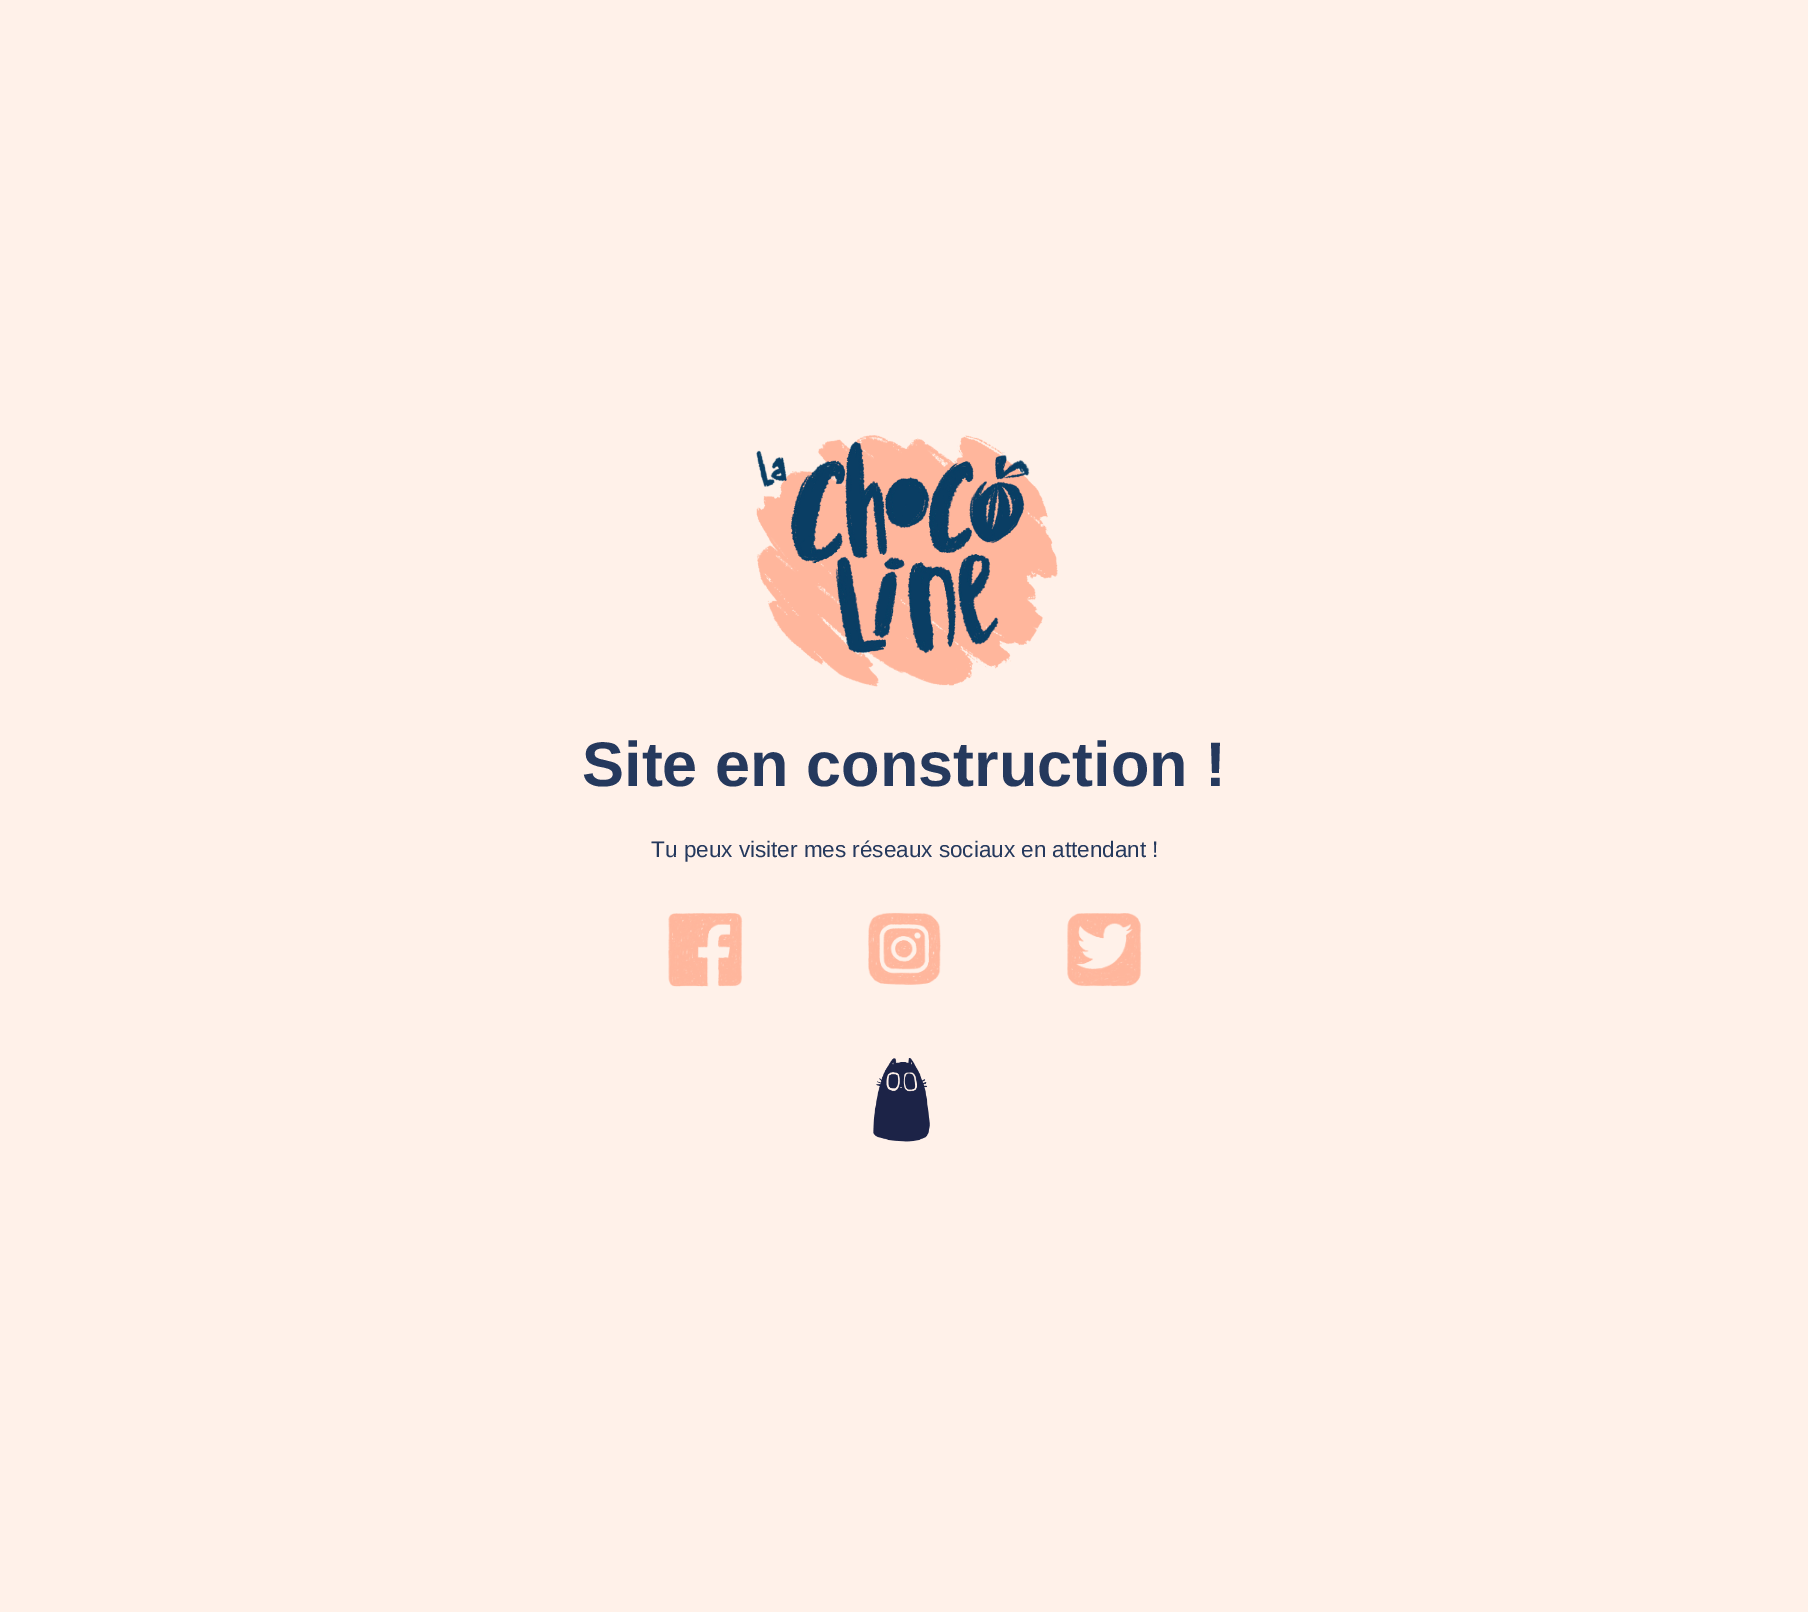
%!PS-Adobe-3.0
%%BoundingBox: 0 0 1808 1612
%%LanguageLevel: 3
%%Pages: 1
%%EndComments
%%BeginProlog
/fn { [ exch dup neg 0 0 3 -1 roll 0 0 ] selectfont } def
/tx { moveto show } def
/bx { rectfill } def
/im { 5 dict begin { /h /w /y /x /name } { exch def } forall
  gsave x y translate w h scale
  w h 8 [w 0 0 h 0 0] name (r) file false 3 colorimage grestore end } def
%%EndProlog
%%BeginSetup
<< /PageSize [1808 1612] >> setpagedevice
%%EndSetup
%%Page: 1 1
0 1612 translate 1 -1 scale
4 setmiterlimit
1 0.945 0.914 setrgbcolor
0 0 1808 1612 bx
(image0.raw) 756 435 302 252 im
/LiberationSans-Bold 63 fn
0.145 0.224 0.365 setrgbcolor
(Site en construction !) 582 786 tx
/LiberationSans-Regular 22.5 fn
(Tu peux visiter mes réseaux sociaux en attendant !) 651 857 tx
(image1.raw) 668 913 75 74 im
(image2.raw) 868 912 73 73 im
(image3.raw) 1067 913 75 74 im
(image4.raw) 873 1058 57 84 im
showpage
%%EOF
